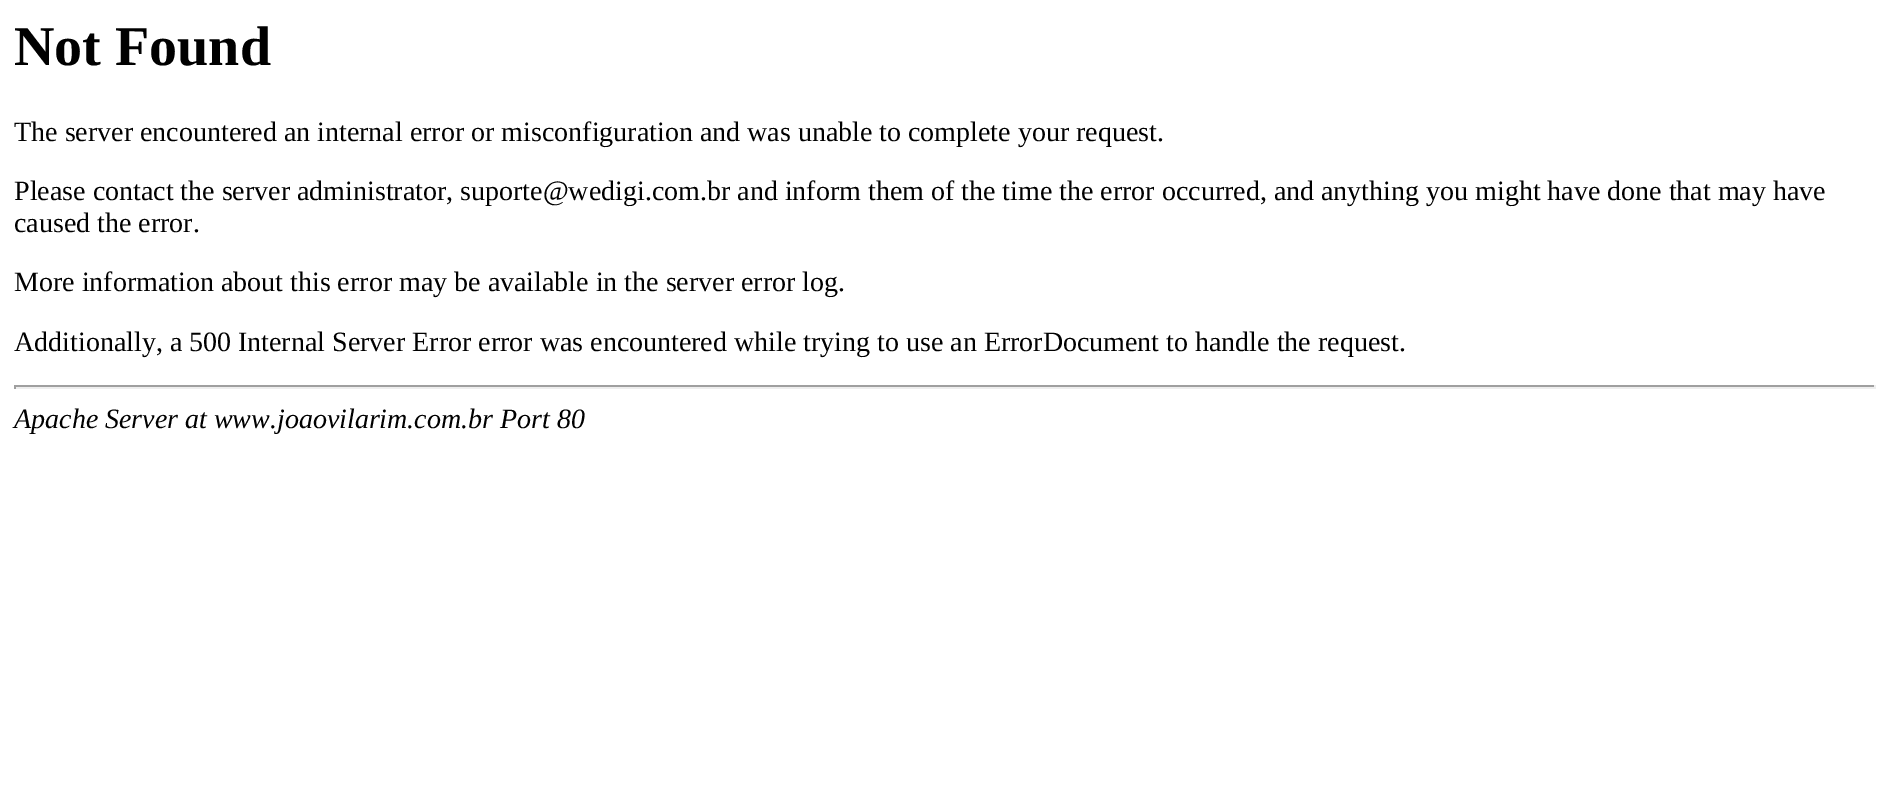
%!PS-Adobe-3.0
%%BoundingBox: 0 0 1889 802
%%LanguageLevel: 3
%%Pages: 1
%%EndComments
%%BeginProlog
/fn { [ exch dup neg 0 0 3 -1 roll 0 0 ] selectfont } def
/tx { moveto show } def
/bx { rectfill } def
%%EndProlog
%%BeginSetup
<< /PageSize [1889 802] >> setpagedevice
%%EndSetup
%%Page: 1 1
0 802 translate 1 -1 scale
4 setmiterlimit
1 setgray
0 0 1889 802 bx
/LiberationSerif-Bold 56 fn
0 setgray
(Not Found) 14 65 tx
/LiberationSerif-Regular 28 fn
(The server encountered an internal error or misconfiguration and was unable to complete your request.) 14 141 tx
(Please contact the server administrator, suporte@wedigi.com.br and inform them of the time the error occurred, and anything you might have done that may have) 14 200 tx
(caused the error.) 14 232 tx
(More information about this error may be available in the server error log.) 14 291 tx
(Additionally, a 500 Internal Server Error error was encountered while trying to use an ErrorDocument to handle the request.) 14 351 tx
0.624 setgray
14 385 1862 2 bx
0.933 setgray
1874 385 2 4 bx
14 387 1862 2 bx
0.624 setgray
14 385 2 4 bx
/LiberationSerif-Italic 28 fn
0 setgray
(Apache Server at www.joaovilarim.com.br Port 80) 14 428 tx
showpage
%%EOF
